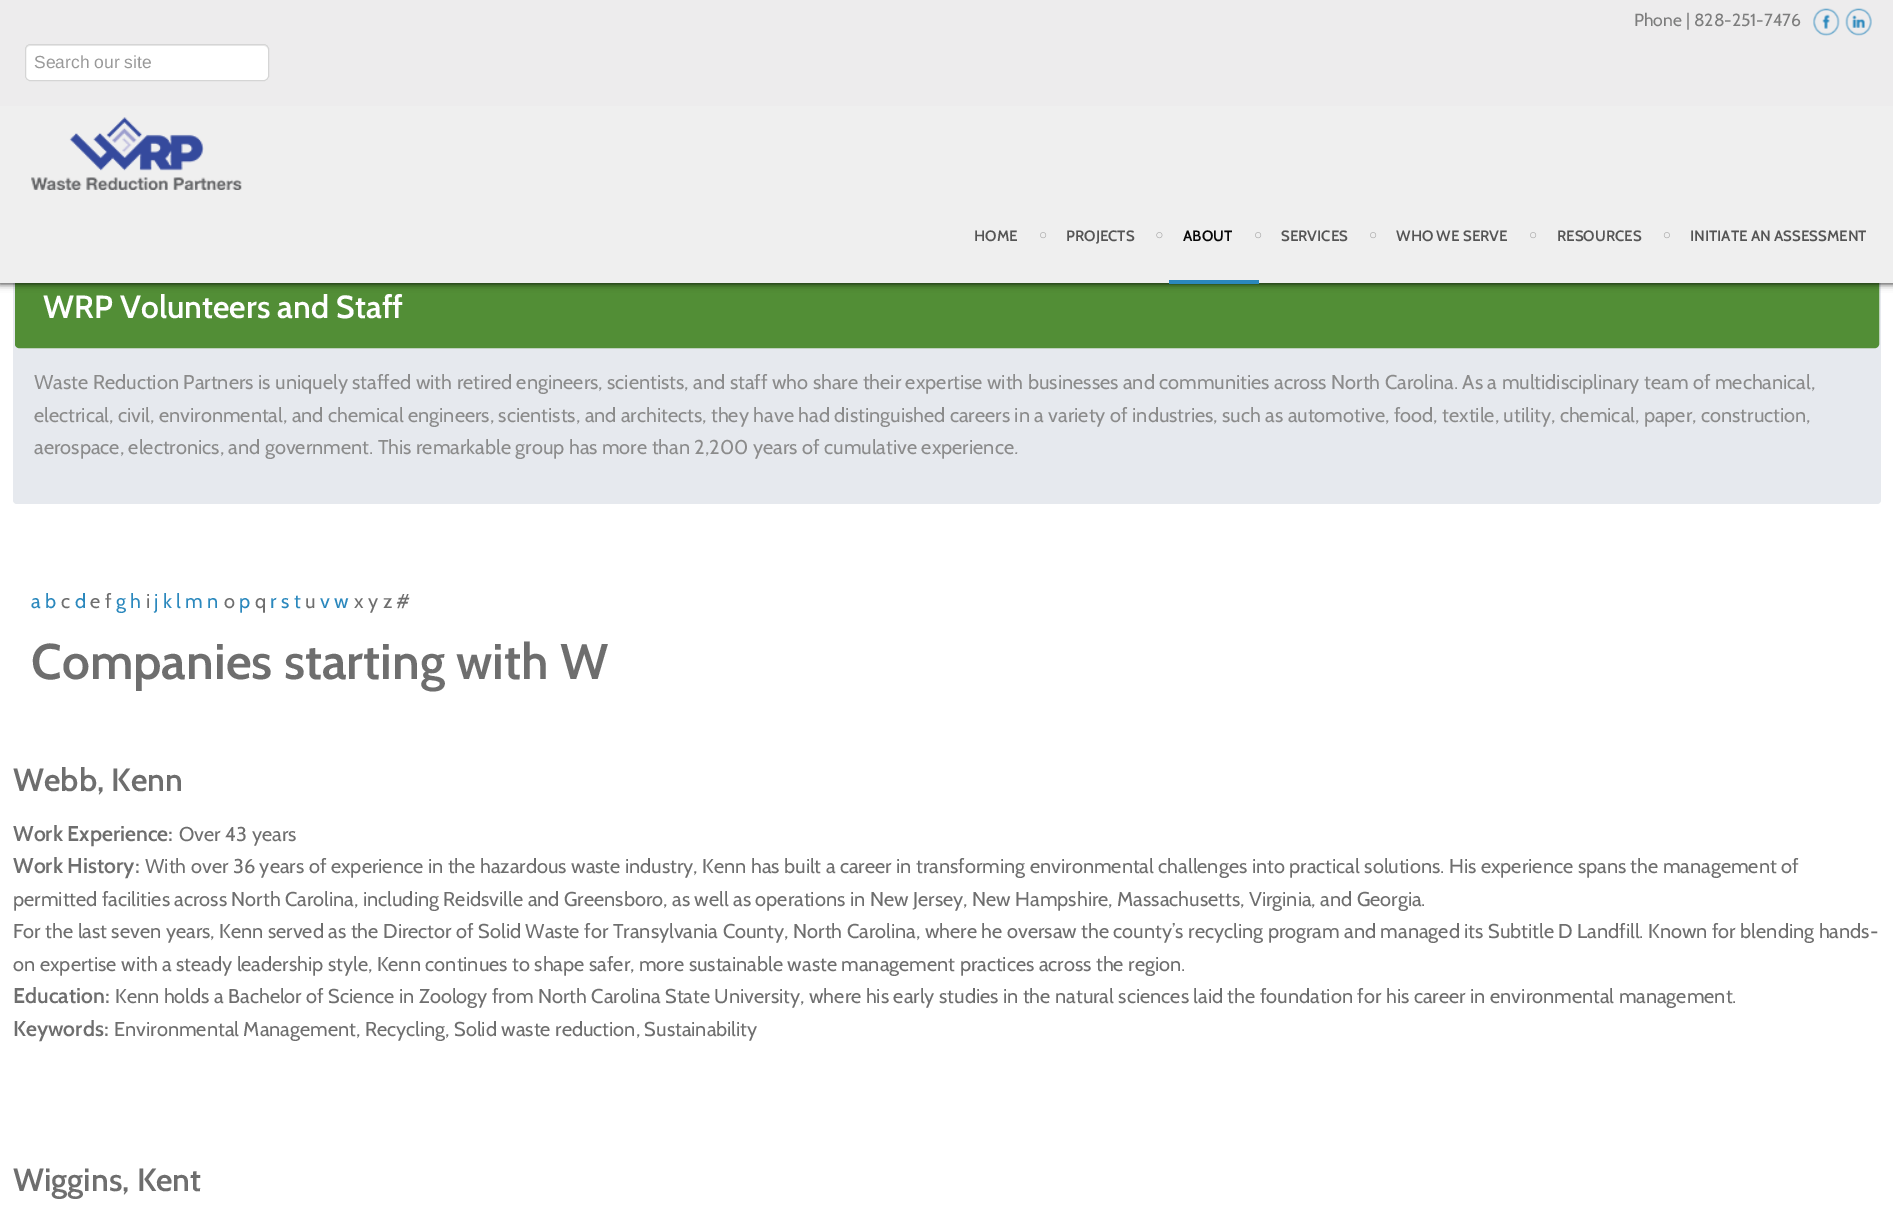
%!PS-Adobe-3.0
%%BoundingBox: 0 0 1893 1213
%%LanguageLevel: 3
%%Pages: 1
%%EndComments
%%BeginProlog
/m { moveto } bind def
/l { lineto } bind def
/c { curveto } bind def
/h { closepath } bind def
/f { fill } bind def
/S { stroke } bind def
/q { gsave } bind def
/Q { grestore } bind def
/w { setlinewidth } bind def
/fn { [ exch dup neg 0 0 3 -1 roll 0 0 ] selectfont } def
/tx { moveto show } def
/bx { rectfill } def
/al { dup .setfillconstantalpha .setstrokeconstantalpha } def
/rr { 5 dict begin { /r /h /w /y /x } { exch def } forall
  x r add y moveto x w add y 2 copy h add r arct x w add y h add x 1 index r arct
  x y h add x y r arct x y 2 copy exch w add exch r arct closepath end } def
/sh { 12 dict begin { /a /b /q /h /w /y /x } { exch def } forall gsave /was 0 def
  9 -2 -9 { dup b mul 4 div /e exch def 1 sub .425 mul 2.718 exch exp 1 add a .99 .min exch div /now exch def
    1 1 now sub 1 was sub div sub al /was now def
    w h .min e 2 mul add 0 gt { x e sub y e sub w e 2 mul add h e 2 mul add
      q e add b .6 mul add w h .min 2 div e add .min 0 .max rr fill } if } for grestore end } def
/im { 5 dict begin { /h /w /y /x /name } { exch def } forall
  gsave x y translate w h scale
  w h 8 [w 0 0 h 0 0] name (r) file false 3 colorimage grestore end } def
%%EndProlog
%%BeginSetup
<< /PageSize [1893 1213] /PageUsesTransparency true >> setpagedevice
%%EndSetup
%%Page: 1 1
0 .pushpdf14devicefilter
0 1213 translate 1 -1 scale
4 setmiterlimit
1 setgray
0 0 1893 1213 bx
0.902 0.914 0.933 setrgbcolor
13 246 1868 258 4 rr f
0.322 0.557 0.212 setrgbcolor
16.5 269.5 1861 77 2.5 rr q f Q
3 w
S
0 setgray
0 1 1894 283 0 4 0.4 sh
0 1 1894 283 0 2 0.5 sh
0.937 setgray
0 106 1893 177 bx
0.929 0.925 0.929 setrgbcolor
0 0 1893 106 bx
/Cabin-Regular 17.5 fn
0.49 setgray
(Phone | 828-251-7476) 1634 26 tx
(image0.raw) 1813 8 27 28 im
(image1.raw) 1845 8 27 28 im
1 setgray
25 44 244 37 5 rr f
0.925 setgray
30 46 m 264 46 l 266 46 268 48 268 50 c 268 49 l 268 47 266 45 264 45 c 30 45 l 28 45 26 47 26 49 c 26 50 l 26 48 28 46 30 46 c h f
0.835 setgray
1 w
25.5 44.5 243 36 4.5 rr S
/LiberationSans-Regular 17.5 fn
0.6 setgray
(Search our site) 34 68 tx
(image2.raw) 31 117 211 73 im
/Cabin-SemiBold 15 fn
0.333 setgray
(HOME) 974 241 tx
(image3.raw) 1040 232 7 7 im
(PROJECTS) 1066 241 tx
(image4.raw) 1156 232 7 7 im
0.031 setgray
(ABOUT) 1183 241 tx
0.169 0.533 0.741 setrgbcolor
1169 280 90 4 bx
(image3.raw) 1255 232 7 7 im
0.333 setgray
(SERVICES) 1281 241 tx
(image3.raw) 1370 232 7 7 im
(WHO WE SERVE) 1396 241 tx
(image3.raw) 1530 232 7 7 im
(RESOURCES) 1557 241 tx
(image5.raw) 1663 232 7 7 im
(INITIATE AN ASSESSMENT) 1690 241 tx
/Cabin-SemiBold 32 fn
1 setgray
(WRP Volunteers and Staff) 43 318 tx
/Cabin-Regular 20 fn
0.545 setgray
(Waste Reduction Partners is uniquely staffed with retired engineers, scientists, and staff who share their expertise with businesses and communities across North Carolina. As a multidisciplinary team of mechanical,) 34 389 tx
(electrical, civil, environmental, and chemical engineers, scientists, and architects, they have had distinguished careers in a variety of industries, such as automotive, food, textile, utility, chemical, paper, construction,) 34 422 tx
(aerospace, electronics, and government. This remarkable group has more than 2,200 years of cumulative experience) 34 454 tx
/Cabin-Italic 20 fn
(.) 1014 454 tx
/Cabin-Regular 20 fn
0.169 0.533 0.741 setrgbcolor
(a b) 31 608 tx
0.431 setgray
(c) 61 608 tx
0.169 0.533 0.741 setrgbcolor
(d) 75 608 tx
0.431 setgray
(e f) 90 608 tx
0.169 0.533 0.741 setrgbcolor
(g h) 116 608 tx
0.431 setgray
(i) 146 608 tx
0.169 0.533 0.741 setrgbcolor
(j k l m n) 154 608 tx
0.431 setgray
(o) 224 608 tx
0.169 0.533 0.741 setrgbcolor
(p) 239 608 tx
0.431 setgray
(q) 255 608 tx
0.169 0.533 0.741 setrgbcolor
(r s t) 270 608 tx
0.431 setgray
(u) 305 608 tx
0.169 0.533 0.741 setrgbcolor
(v w) 320 608 tx
0.431 setgray
(x y z #) 354 608 tx
/Cabin-SemiBold 50 fn
(Companies starting with W) 31 679 tx
/Cabin-SemiBold 32 fn
(Webb, Kenn) 13 791 tx
/Cabin-SemiBold 21.25 fn
(Work Experience:) 13 841 tx
/Cabin-Regular 20 fn
(Over 43 years) 179 841 tx
/Cabin-SemiBold 21.25 fn
(Work History:) 13 873 tx
/Cabin-Regular 20 fn
(With over 36 years of experience in the hazardous waste industry, Kenn has built a career in transforming environmental challenges into practical solutions. His experience spans the management of) 145 873 tx
(permitted facilities across North Carolina, including Reidsville and Greensboro, as well as operations in New Jersey, New Hampshire, Massachusetts, Virginia, and Georgia.) 13 906 tx
(For the last seven years, Kenn served as the Director of Solid Waste for Transylvania County, North Carolina, where he oversaw the county’s recycling program and managed its Subtitle D Landfill. Known for blending hands-) 13 938 tx
(on expertise with a steady leadership style, Kenn continues to shape safer, more sustainable waste management practices across the region.) 13 971 tx
/Cabin-SemiBold 21.25 fn
(Education:) 13 1003 tx
/Cabin-Regular 20 fn
(Kenn holds a Bachelor of Science in Zoology from North Carolina State University, where his early studies in the natural sciences laid the foundation for his career in environmental management.) 115 1003 tx
/Cabin-SemiBold 21.25 fn
(Keywords:) 13 1036 tx
/Cabin-Regular 20 fn
(Environmental Management, Recycling, Solid waste reduction, Sustainability) 114 1036 tx
/Cabin-SemiBold 32 fn
(Wiggins, Kent) 13 1191 tx
.poppdf14devicefilter showpage
%%EOF
